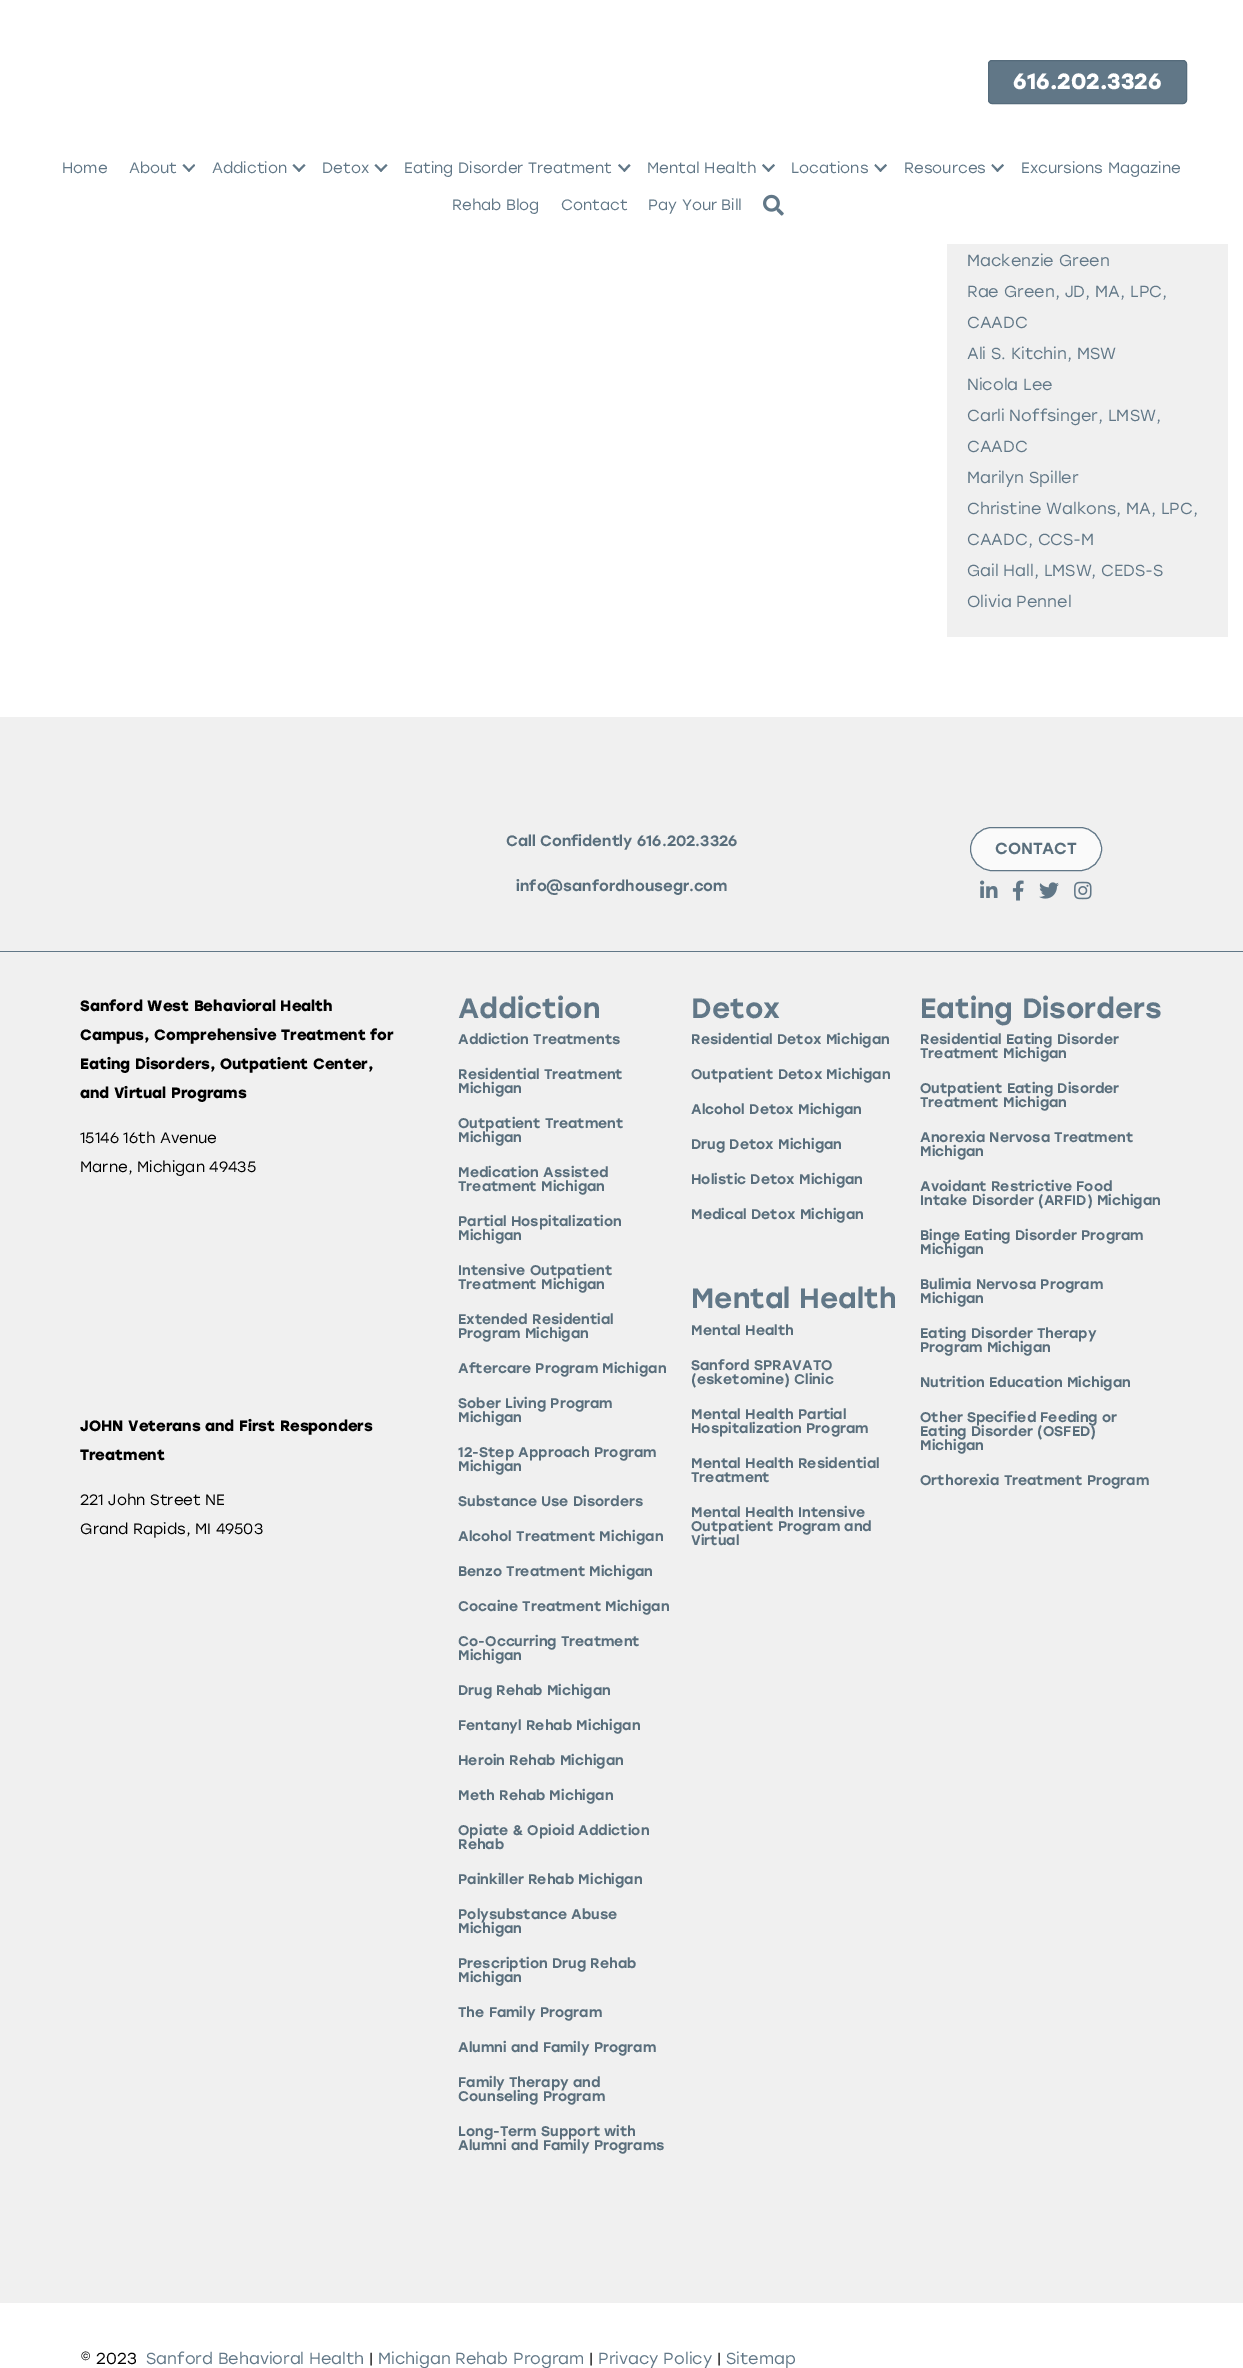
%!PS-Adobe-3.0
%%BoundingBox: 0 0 1243 2368
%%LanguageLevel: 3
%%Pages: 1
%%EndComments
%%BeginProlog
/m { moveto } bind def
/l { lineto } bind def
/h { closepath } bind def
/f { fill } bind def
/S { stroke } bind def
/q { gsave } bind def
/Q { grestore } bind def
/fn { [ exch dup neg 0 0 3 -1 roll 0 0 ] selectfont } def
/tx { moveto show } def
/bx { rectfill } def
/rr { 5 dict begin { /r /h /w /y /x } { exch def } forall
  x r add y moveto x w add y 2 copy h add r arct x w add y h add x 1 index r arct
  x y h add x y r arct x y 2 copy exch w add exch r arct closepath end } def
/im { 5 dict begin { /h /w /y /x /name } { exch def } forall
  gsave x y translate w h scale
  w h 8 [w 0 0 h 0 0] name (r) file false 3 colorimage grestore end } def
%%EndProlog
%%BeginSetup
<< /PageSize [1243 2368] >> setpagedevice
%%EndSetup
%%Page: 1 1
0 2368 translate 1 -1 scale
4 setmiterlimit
1 setgray
0 0 1243 2368 bx
0.38 0.467 0.529 setrgbcolor
988.5 60.5 198 43 3.5 rr q f Q
0.333 0.42 0.482 setrgbcolor
S
/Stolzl-Bold 22 fn
1 setgray
(616.202.3326) 1013 89 tx
/Stolzl-Regular 15 fn
0.38 0.467 0.529 setrgbcolor
(Home) 62 173 tx
(About) 129 173 tx
194 164 m 195 165.5 l 189 172 l 187.5 170.5 l h f
184 164 m 190 170.5 l 189 172 l 182.5 165.5 l h f
(Addiction) 212 173 tx
304 164 m 305.5 165.5 l 299 172 l 297.5 170.5 l h f
294 164 m 300.5 170.5 l 299 172 l 292.5 165.5 l h f
(Detox) 322 173 tx
386 164 m 387.5 165.5 l 381 172 l 379.5 170.5 l h f
376 164 m 382.5 170.5 l 381 172 l 374.5 165.5 l h f
(Eating Disorder Treatment) 404 173 tx
629 164 m 630.5 165.5 l 624.5 172 l 623 170.5 l h f
619.5 164 m 625.5 170.5 l 624.5 172 l 618 165.5 l h f
(Mental Health) 647 173 tx
773.5 164 m 775 165.5 l 768.5 172 l 767 170.5 l h f
763.5 164 m 770 170.5 l 768.5 172 l 762 165.5 l h f
(Locations) 791 173 tx
885.5 164 m 887 165.5 l 880.5 172 l 879 170.5 l h f
875.5 164 m 882 170.5 l 880.5 172 l 874.5 165.5 l h f
(Resources) 904 173 tx
1002.5 164 m 1004 165.5 l 997.5 172 l 996 170.5 l h f
992.5 164 m 999 170.5 l 997.5 172 l 991.5 165.5 l h f
(Excursions Magazine) 1021 173 tx
(Rehab Blog) 452 210 tx
(Contact) 561 210 tx
(Pay Your Bill) 648 210 tx
(image0.raw) 763 194 21 22 im
0.941 setgray
947 244 281 393 bx
/Stolzl-Regular 16 fn
0.38 0.467 0.529 setrgbcolor
(Mackenzie Green) 967 266 tx
(Rae Green, JD, MA, LPC,) 967 297 tx
(CAADC) 967 328 tx
(Ali S. Kitchin, MSW) 967 359 tx
(Nicola Lee) 967 390 tx
(Carli Noffsinger, LMSW,) 967 421 tx
(CAADC) 967 452 tx
(Marilyn Spiller) 967 483 tx
(Christine Walkons, MA, LPC,) 967 514 tx
(CAADC, CCS-M) 967 545 tx
(Gail Hall, LMSW, CEDS-S) 967 576 tx
(Olivia Pennel) 967 607 tx
0.941 setgray
0 717 1243 1586 bx
0.38 0.467 0.529 setrgbcolor
0 951 1243 1 bx
/Stolzl-Medium 15 fn
0.349 0.431 0.486 setrgbcolor
(Call Confidently 616.202.3326) 506 846 tx
(info@sanfordhousegr.com) 516 891 tx
0.98 setgray
970.5 827.5 131 43 21.5 rr q f Q
0.38 0.467 0.529 setrgbcolor
S
/Stolzl-Medium 16 fn
0.349 0.431 0.486 setrgbcolor
(CONTACT) 995 854 tx
(image1.raw) 980 880 18 18 im
(image2.raw) 1012 880 12 21 im
(image3.raw) 1039 882 20 17 im
(image4.raw) 1074 881 18 19 im
/Stolzl-Bold 15 fn
0 setgray
(Sanford West Behavioral Health) 80 1011 tx
(Campus, Comprehensive Treatment for) 80 1040 tx
(Eating Disorders, Outpatient Center,) 80 1069 tx
(and Virtual Programs) 80 1098 tx
/Stolzl-Regular 15 fn
(15146 16th Avenue) 80 1143 tx
(Marne, Michigan 49435) 80 1172 tx
/Stolzl-Bold 15 fn
(JOHN Veterans and First Responders) 80 1431 tx
(Treatment) 80 1460 tx
/Stolzl-Regular 15 fn
(221 John Street NE) 80 1505 tx
(Grand Rapids, MI 49503) 80 1534 tx
/Stolzl-Medium 28 fn
0.38 0.467 0.529 setrgbcolor
(Addiction) 458 1018 tx
/Stolzl-Medium 14 fn
0.349 0.431 0.486 setrgbcolor
(Addiction Treatments) 458 1044 tx
(Residential Treatment) 458 1079 tx
(Michigan) 458 1093 tx
(Outpatient Treatment) 458 1128 tx
(Michigan) 458 1142 tx
(Medication Assisted) 458 1177 tx
(Treatment Michigan) 458 1191 tx
(Partial Hospitalization) 458 1226 tx
(Michigan) 458 1240 tx
(Intensive Outpatient) 458 1275 tx
(Treatment Michigan) 458 1289 tx
(Extended Residential) 458 1324 tx
(Program Michigan) 458 1338 tx
(Aftercare Program Michigan) 458 1373 tx
(Sober Living Program) 458 1408 tx
(Michigan) 458 1422 tx
(12-Step Approach Program) 458 1457 tx
(Michigan) 458 1471 tx
(Substance Use Disorders) 458 1506 tx
(Alcohol Treatment Michigan) 458 1541 tx
(Benzo Treatment Michigan) 458 1576 tx
(Cocaine Treatment Michigan) 458 1611 tx
(Co-Occurring Treatment) 458 1646 tx
(Michigan) 458 1660 tx
(Drug Rehab Michigan) 458 1695 tx
(Fentanyl Rehab Michigan) 458 1730 tx
(Heroin Rehab Michigan) 458 1765 tx
(Meth Rehab Michigan) 458 1800 tx
(Opiate & Opioid Addiction) 458 1835 tx
(Rehab) 458 1849 tx
(Painkiller Rehab Michigan) 458 1884 tx
(Polysubstance Abuse) 458 1919 tx
(Michigan) 458 1933 tx
(Prescription Drug Rehab) 458 1968 tx
(Michigan) 458 1982 tx
(The Family Program) 458 2017 tx
(Alumni and Family Program) 458 2052 tx
(Family Therapy and) 458 2087 tx
(Counseling Program) 458 2101 tx
(Long-Term Support with) 458 2136 tx
(Alumni and Family Programs) 458 2150 tx
/Stolzl-Medium 28 fn
0.38 0.467 0.529 setrgbcolor
(Detox) 691 1018 tx
/Stolzl-Medium 14 fn
0.349 0.431 0.486 setrgbcolor
(Residential Detox Michigan) 691 1044 tx
(Outpatient Detox Michigan) 691 1079 tx
(Alcohol Detox Michigan) 691 1114 tx
(Drug Detox Michigan) 691 1149 tx
(Holistic Detox Michigan) 691 1184 tx
(Medical Detox Michigan) 691 1219 tx
/Stolzl-Medium 28 fn
0.38 0.467 0.529 setrgbcolor
(Mental Health) 691 1308 tx
/Stolzl-Medium 14 fn
0.349 0.431 0.486 setrgbcolor
(Mental Health) 691 1335 tx
(Sanford SPRAVATO) 691 1370 tx
(\(esketomine\) Clinic) 691 1384 tx
(Mental Health Partial) 691 1419 tx
(Hospitalization Program) 691 1433 tx
(Mental Health Residential) 691 1468 tx
(Treatment) 691 1482 tx
(Mental Health Intensive) 691 1517 tx
(Outpatient Program and) 691 1531 tx
(Virtual) 691 1545 tx
/Stolzl-Medium 28 fn
0.38 0.467 0.529 setrgbcolor
(Eating Disorders) 920 1018 tx
/Stolzl-Medium 14 fn
0.349 0.431 0.486 setrgbcolor
(Residential Eating Disorder) 920 1044 tx
(Treatment Michigan) 920 1058 tx
(Outpatient Eating Disorder) 920 1093 tx
(Treatment Michigan) 920 1107 tx
(Anorexia Nervosa Treatment) 920 1142 tx
(Michigan) 920 1156 tx
(Avoidant Restrictive Food) 920 1191 tx
(Intake Disorder \(ARFID\) Michigan) 920 1205 tx
(Binge Eating Disorder Program) 920 1240 tx
(Michigan) 920 1254 tx
(Bulimia Nervosa Program) 920 1289 tx
(Michigan) 920 1303 tx
(Eating Disorder Therapy) 920 1338 tx
(Program Michigan) 920 1352 tx
(Nutrition Education Michigan) 920 1387 tx
(Other Specified Feeding or) 920 1422 tx
(Eating Disorder \(OSFED\)) 920 1436 tx
(Michigan) 920 1450 tx
(Orthorexia Treatment Program) 920 1485 tx
/Stolzl-Regular 16 fn
0 setgray
(© 2023) 80 2364 tx
0.38 0.467 0.529 setrgbcolor
(Sanford Behavioral Health) 146 2364 tx
0 setgray
(|) 369 2364 tx
0.38 0.467 0.529 setrgbcolor
(Michigan Rehab Program) 378 2364 tx
0 setgray
(|) 589 2364 tx
0.38 0.467 0.529 setrgbcolor
(Privacy Policy) 598 2364 tx
0 setgray
(|) 717 2364 tx
0.38 0.467 0.529 setrgbcolor
(Sitemap) 726 2364 tx
showpage
%%EOF
